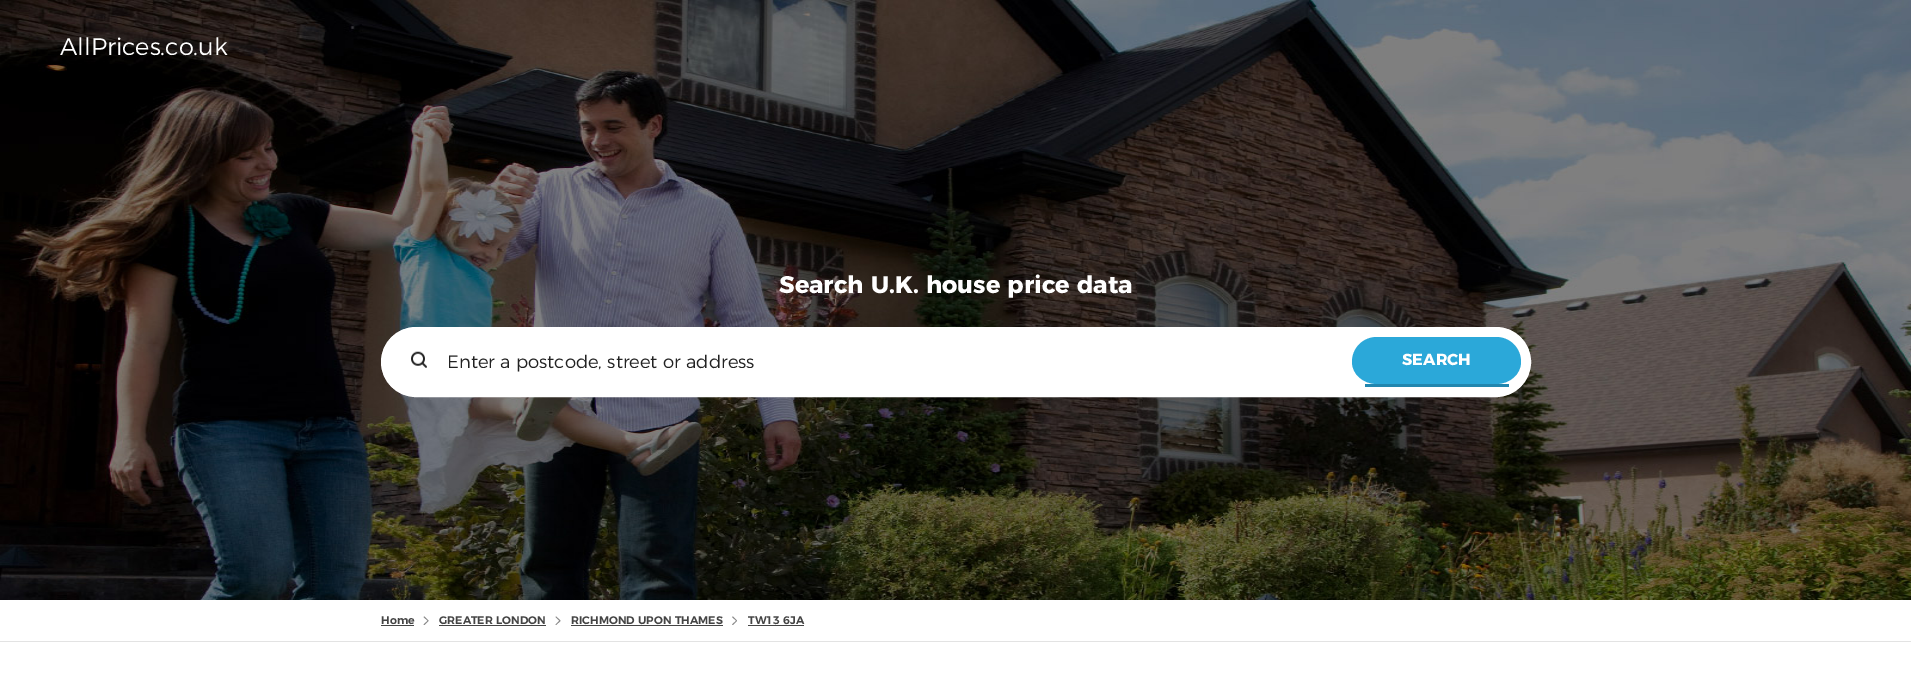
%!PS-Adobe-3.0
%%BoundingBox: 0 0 1911 684
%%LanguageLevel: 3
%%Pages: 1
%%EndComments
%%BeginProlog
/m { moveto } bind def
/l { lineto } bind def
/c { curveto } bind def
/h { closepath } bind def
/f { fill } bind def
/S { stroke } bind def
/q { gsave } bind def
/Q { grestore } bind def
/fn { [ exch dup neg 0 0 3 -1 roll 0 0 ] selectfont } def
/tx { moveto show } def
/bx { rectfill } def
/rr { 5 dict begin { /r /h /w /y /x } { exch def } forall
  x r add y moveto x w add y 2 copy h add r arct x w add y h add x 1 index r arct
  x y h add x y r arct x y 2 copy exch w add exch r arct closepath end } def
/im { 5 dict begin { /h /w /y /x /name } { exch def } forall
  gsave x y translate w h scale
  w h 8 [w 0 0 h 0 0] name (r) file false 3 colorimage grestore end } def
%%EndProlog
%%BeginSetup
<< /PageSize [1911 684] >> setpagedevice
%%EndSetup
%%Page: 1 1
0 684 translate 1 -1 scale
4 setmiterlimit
1 setgray
0 0 1911 684 bx
(image0.raw) 0 0 1911 600 im
/Montserrat-Light 24 fn
(AllPrices.co.uk) 60 55 tx
/Montserrat-Bold 24 fn
(Search U.K. house price data) 779 293 tx
381.5 327.5 1149 69 34.5 rr q f Q
S
(image1.raw) 411 351 16 17 im
/Montserrat-Light 18 fn
0.133 setgray
(Enter a postcode, street or address) 447 368 tx
0.169 0.659 0.851 setrgbcolor
1377 337 m 1496 337 l 1510 337 1521 348 1521 362 c 1521 374 1510 384 1496 384 c 1377 384 l 1363 384 1352 374 1352 362 c 1352 348 1363 337 1377 337 c h f
0.133 0.525 0.682 setrgbcolor
1365 384 144 3 bx
/Montserrat-Bold 16 fn
1 setgray
(SEARCH) 1402 365 tx
0.89 setgray
0 641 1911 1 bx
/Montserrat-SemiBold 11 fn
0.267 setgray
(Home) 381 624 tx
381 625 33 1 bx
0.533 setgray
424.5 616.5 m 428.5 620.5 l 428 621 l 423.5 617 l h f
423.5 624.5 m 428 620.5 l 428.5 621 l 424.5 625 l h f
0.267 setgray
(GREATER LONDON) 439 624 tx
439 625 107 1 bx
0.533 setgray
556 616.5 m 560.5 620.5 l 559.5 621 l 555.5 617 l h f
555.5 624.5 m 559.5 620.5 l 560.5 621 l 556 625 l h f
0.267 setgray
(RICHMOND UPON THAMES) 571 624 tx
571 625 152 1 bx
0.533 setgray
733 616.5 m 737 620.5 l 736.5 621 l 732 617 l h f
732 624.5 m 736.5 620.5 l 737 621 l 733 625 l h f
0.267 setgray
(TW13 6JA) 748 624 tx
748 625 56 1 bx
showpage
%%EOF
